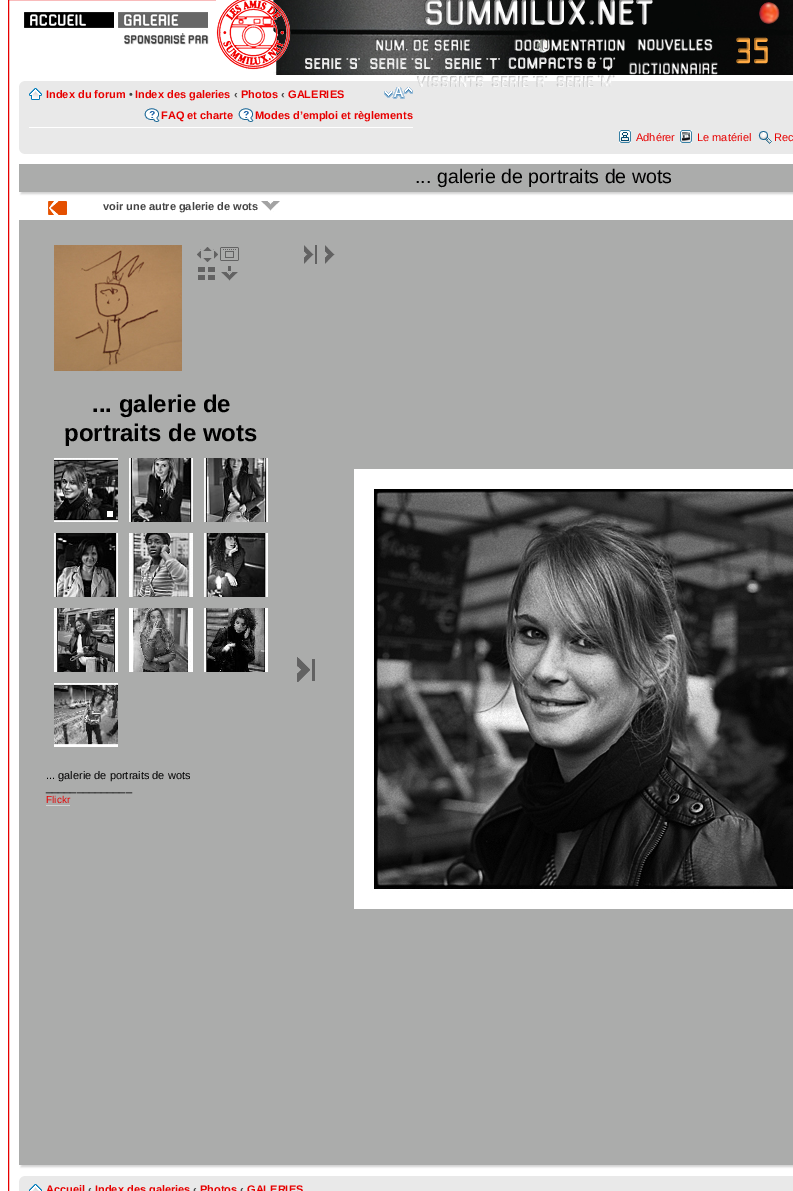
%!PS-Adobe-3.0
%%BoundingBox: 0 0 793 1191
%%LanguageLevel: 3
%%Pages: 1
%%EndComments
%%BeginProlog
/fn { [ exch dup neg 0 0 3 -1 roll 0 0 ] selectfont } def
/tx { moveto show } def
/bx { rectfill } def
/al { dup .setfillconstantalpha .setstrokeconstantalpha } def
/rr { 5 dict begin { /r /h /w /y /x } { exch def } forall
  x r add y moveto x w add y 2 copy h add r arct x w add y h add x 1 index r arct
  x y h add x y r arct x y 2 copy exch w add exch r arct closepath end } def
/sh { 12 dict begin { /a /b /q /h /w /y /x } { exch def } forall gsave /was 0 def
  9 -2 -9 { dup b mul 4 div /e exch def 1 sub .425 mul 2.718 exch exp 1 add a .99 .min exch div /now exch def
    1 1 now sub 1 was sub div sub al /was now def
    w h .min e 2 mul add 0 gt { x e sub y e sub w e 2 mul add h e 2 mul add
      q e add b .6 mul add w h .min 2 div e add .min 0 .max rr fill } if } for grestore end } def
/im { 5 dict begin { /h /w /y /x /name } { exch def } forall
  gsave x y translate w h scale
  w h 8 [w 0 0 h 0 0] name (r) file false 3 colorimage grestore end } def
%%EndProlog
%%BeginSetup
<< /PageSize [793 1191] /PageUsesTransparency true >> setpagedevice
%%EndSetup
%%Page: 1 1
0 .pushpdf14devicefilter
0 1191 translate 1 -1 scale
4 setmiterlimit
1 setgray
0 0 793 1191 bx
0.906 0 0 setrgbcolor
8.5 -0.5 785 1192 rectstroke
(image0.raw) 24 12 90 16 im
(image1.raw) 118 12 90 16 im
(image4.raw) 273 0 520 75 im
(image2.raw) 216 0 75 70 im
(image3.raw) 124 33 85 12 im
(image5.raw) 424 0 229 25 im
(image6.raw) 759 2 21 22 im
(image7.raw) 736 37 32 27 im
(image8.raw) 375 38 96 13 im
(image9.raw) 514 39 111 12 im
(image10.raw) 637 39 76 12 im
(image11.raw) 628 62 90 13 im
(image12.raw) 305 58 55 11 im
(image13.raw) 370 58 63 11 im
(image14.raw) 445 58 55 11 im
(image15.raw) 508 57 108 14 im
0.914 setgray
19 81 774 73 bx
(image16.raw) 416 76 68 11 im
(image17.raw) 491 76 57 11 im
(image18.raw) 556 75 59 12 im
(image19.raw) 19 81 5 5 im
1 setgray
29 127 384 1 bx
(image20.raw) 29 88 13 12 im
/LiberationSans-Bold 11 fn
0.906 0 0 setrgbcolor
(Index du forum) 46 98 tx
/LiberationSans-Regular 11 fn
0.267 setgray
(•) 129 98 tx
/LiberationSans-Bold 11 fn
0.906 0 0 setrgbcolor
(Index des galeries) 135 98 tx
0.267 setgray
(‹) 234 98 tx
0.906 0 0 setrgbcolor
(Photos) 241 98 tx
0.267 setgray
(‹) 281 98 tx
0.906 0 0 setrgbcolor
(GALERIES) 288 98 tx
(image21.raw) 384 87 29 12 im
(image22.raw) 144 108 16 14 im
(FAQ et charte) 161 119 tx
(image22.raw) 238 108 16 14 im
(Modes d’emploi et règlements) 255 119 tx
(image23.raw) 619 130 12 13 im
/LiberationSans-Regular 11 fn
(Adhérer) 636 141 tx
(image24.raw) 680 130 12 13 im
(Le matériel) 697 141 tx
(image25.raw) 758 131 14 13 im
(Rec) 774 141 tx
(image26.raw) 19 149 5 5 im
0.82 setgray
21 166 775 28 0 1 1 sh
0.671 0.675 0.671 setrgbcolor
19 164 774 28 bx
/LiberationSans-Regular 19.6 fn
0 setgray
(... galerie de portraits de wots) 415 183 tx
(image27.raw) 48 201 19 14 im
/LiberationSans-Bold 11 fn
0.267 setgray
(voir une autre galerie de wots) 103 210 tx
(image28.raw) 261 201 19 11 im
0.82 setgray
21 222 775 945 0 1 1 sh
0.671 0.675 0.671 setrgbcolor
19 220 774 945 bx
(image29.raw) 54 245 128 126 im
(image30.raw) 197 247 21 15 im
(image31.raw) 220 247 19 14 im
(image32.raw) 198 267 17 13 im
(image33.raw) 221 266 17 15 im
/LiberationSans-Bold 24 fn
0 setgray
(... galerie de) 92 412 tx
(portraits de wots) 64 441 tx
(image34.raw) 54 458 64 64 im
(image35.raw) 104 508 12 12 im
(image36.raw) 129 458 64 64 im
(image37.raw) 204 458 64 64 im
(image38.raw) 54 533 64 64 im
(image39.raw) 129 533 64 64 im
(image40.raw) 204 533 64 64 im
(image41.raw) 54 608 64 64 im
(image42.raw) 129 608 64 64 im
(image43.raw) 204 608 64 64 im
(image44.raw) 54 683 64 64 im
/LiberationSans-Regular 11 fn
(... galerie de portraits de wots) 46 779 tx
(______________) 46 791 tx
/LiberationSans-Regular 10 fn
0.906 0 0 setrgbcolor
(Flickr) 46 803 tx
0.824 setgray
46 805 24 1 bx
(image45.raw) 304 245 13 19 im
(image46.raw) 325 245 10 19 im
(image47.raw) 297 657 18 25 im
(image48.raw) 354 469 439 440 im
0.914 setgray
19 1176 774 15 bx
(image19.raw) 19 1176 5 5 im
(image49.raw) 29 1184 13 7 im
/LiberationSans-Bold 11 fn
0.906 0 0 setrgbcolor
(Accueil) 46 1193 tx
0.267 setgray
(‹) 88 1193 tx
0.906 0 0 setrgbcolor
(Index des galeries) 95 1193 tx
0.267 setgray
(‹) 193 1193 tx
0.906 0 0 setrgbcolor
(Photos) 200 1193 tx
0.267 setgray
(‹) 240 1193 tx
0.906 0 0 setrgbcolor
(GALERIES) 247 1193 tx
.poppdf14devicefilter showpage
%%EOF
